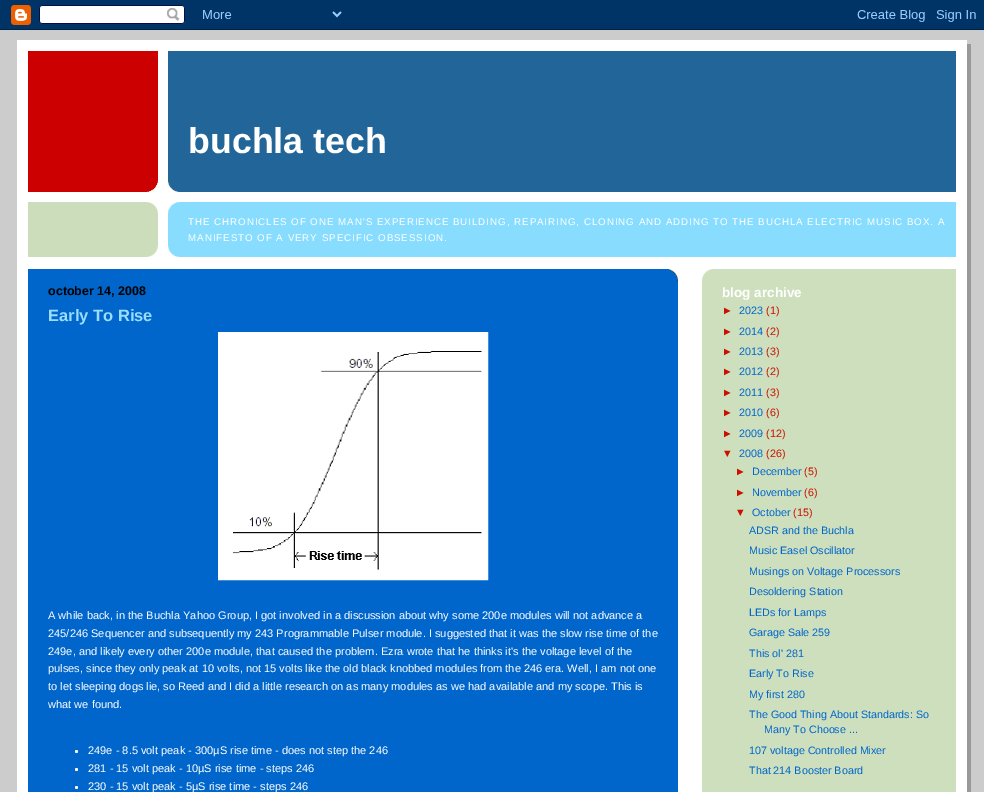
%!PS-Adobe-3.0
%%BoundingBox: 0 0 984 792
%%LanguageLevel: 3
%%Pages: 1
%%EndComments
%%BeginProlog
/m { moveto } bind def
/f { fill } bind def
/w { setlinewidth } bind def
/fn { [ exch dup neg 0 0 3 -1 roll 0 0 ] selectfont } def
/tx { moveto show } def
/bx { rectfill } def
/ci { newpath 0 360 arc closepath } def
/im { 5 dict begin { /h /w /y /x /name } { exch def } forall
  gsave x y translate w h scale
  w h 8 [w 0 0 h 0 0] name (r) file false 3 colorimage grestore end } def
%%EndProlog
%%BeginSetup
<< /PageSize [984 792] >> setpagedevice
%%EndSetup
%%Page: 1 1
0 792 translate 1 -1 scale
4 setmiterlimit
0.8 setgray
0 0 984 792 bx
(image0.raw) 0 0 984 30 im
0.6 setgray
967 44 4 748 bx
1 setgray
17 40 950 752 bx
0.133 0.4 0.6 setrgbcolor
168 51 788 141 bx
(image1.raw) 28 51 152 141 im
/LiberationSans-Bold 35.75 fn
1 setgray
(buchla tech) 188 153 tx
0.533 0.867 1 setrgbcolor
168 202 788 55 bx
(image2.raw) 28 202 152 55 im
(image3.raw) 147 245 33 12 im
/LiberationSans-Regular 9.75 fn
1 setgray
188 225 m 0.97 0 (THE CHRONICLES OF ONE MAN'S EXPERIENCE BUILDING, REPAIRING, CLONING AND ADDING TO THE BUCHLA ELECTRIC MUSIC BOX. A) ashow
188 241 m 0.97 0 (MANIFESTO OF A VERY SPECIFIC OBSESSION.) ashow
0 0.4 0.8 setrgbcolor
28 269 650 523 bx
(image4.raw) 669 269 9 12 im
/LiberationSans-Bold 12.5 fn
0 setgray
(october 14, 2008) 48 295 tx
/LiberationSans-Bold 16.5 fn
0.6 0.867 1 setrgbcolor
(Early To Rise) 48 321 tx
1 setgray
5 w
220.5 334.5 265 243 rectstroke
(image5.raw) 223 337 260 238 im
/LiberationSans-Regular 11.05 fn
(A while back, in the Buchla Yahoo Group, I got involved in a discussion about why some 200e modules will not advance a) 48 619 tx
(245/246 Sequencer and subsequently my 243 Programmable Pulser module. I suggested that it was the slow rise time of the) 48 637 tx
(249e, and likely every other 200e module, that caused the problem. Ezra wrote that he thinks it's the voltage level of the) 48 655 tx
(pulses, since they only peak at 10 volts, not 15 volts like the old black knobbed modules from the 246 era. Well, I am not one) 48 672 tx
(to let sleeping dogs lie, so Reed and I did a little research on as many modules as we had available and my scope. This is) 48 690 tx
(what we found.) 48 708 tx
76.5 751.5 1.5 ci f
(249e - 8.5 volt peak - 300µS rise time - does not step the 246) 88 754 tx
76.5 769.5 1.5 ci f
(281 - 15 volt peak - 10µS rise time - steps 246) 88 772 tx
76.5 787.5 1.5 ci f
(230 - 15 volt peak - 5µS rise time - steps 246) 88 790 tx
0.808 0.875 0.741 setrgbcolor
702 269 254 523 bx
(image6.raw) 702 269 11 11 im
/LiberationSans-Bold 13.5 fn
1 setgray
(blog archive) 722 297 tx
/LiberationSans-Regular 10.75 fn
0.8 0.059 0 setrgbcolor
(►) 722 314 tx
0 0.4 0.8 setrgbcolor
(2023) 739 314 tx
0.8 0.059 0 setrgbcolor
(\(1\)) 766 314 tx
(►) 722 335 tx
0 0.4 0.8 setrgbcolor
(2014) 739 335 tx
0.8 0.059 0 setrgbcolor
(\(2\)) 766 335 tx
(►) 722 355 tx
0 0.4 0.8 setrgbcolor
(2013) 739 355 tx
0.8 0.059 0 setrgbcolor
(\(3\)) 766 355 tx
(►) 722 375 tx
0 0.4 0.8 setrgbcolor
(2012) 739 375 tx
0.8 0.059 0 setrgbcolor
(\(2\)) 766 375 tx
(►) 722 396 tx
0 0.4 0.8 setrgbcolor
(2011) 739 396 tx
0.8 0.059 0 setrgbcolor
(\(3\)) 766 396 tx
(►) 722 416 tx
0 0.4 0.8 setrgbcolor
(2010) 739 416 tx
0.8 0.059 0 setrgbcolor
(\(6\)) 766 416 tx
(►) 722 437 tx
0 0.4 0.8 setrgbcolor
(2009) 739 437 tx
0.8 0.059 0 setrgbcolor
(\(12\)) 766 437 tx
(▼) 722 457 tx
0 0.4 0.8 setrgbcolor
(2008) 739 457 tx
0.8 0.059 0 setrgbcolor
(\(26\)) 766 457 tx
(►) 735 475 tx
0 0.4 0.8 setrgbcolor
(December) 752 475 tx
0.8 0.059 0 setrgbcolor
(\(5\)) 804 475 tx
(►) 735 496 tx
0 0.4 0.8 setrgbcolor
(November) 752 496 tx
0.8 0.059 0 setrgbcolor
(\(6\)) 804 496 tx
(▼) 735 516 tx
0 0.4 0.8 setrgbcolor
(October) 752 516 tx
0.8 0.059 0 setrgbcolor
(\(15\)) 793 516 tx
0 0.4 0.8 setrgbcolor
(ADSR and the Buchla) 749 534 tx
(Music Easel Oscillator) 749 554 tx
(Musings on Voltage Processors) 749 575 tx
(Desoldering Station) 749 595 tx
(LEDs for Lamps) 749 616 tx
(Garage Sale 259) 749 636 tx
(This ol' 281) 749 657 tx
(Early To Rise) 749 677 tx
(My first 280) 749 698 tx
(The Good Thing About Standards: So) 749 718 tx
(Many To Choose ...) 764 733 tx
(107 voltage Controlled Mixer) 749 754 tx
(That 214 Booster Board) 749 774 tx
showpage
%%EOF
